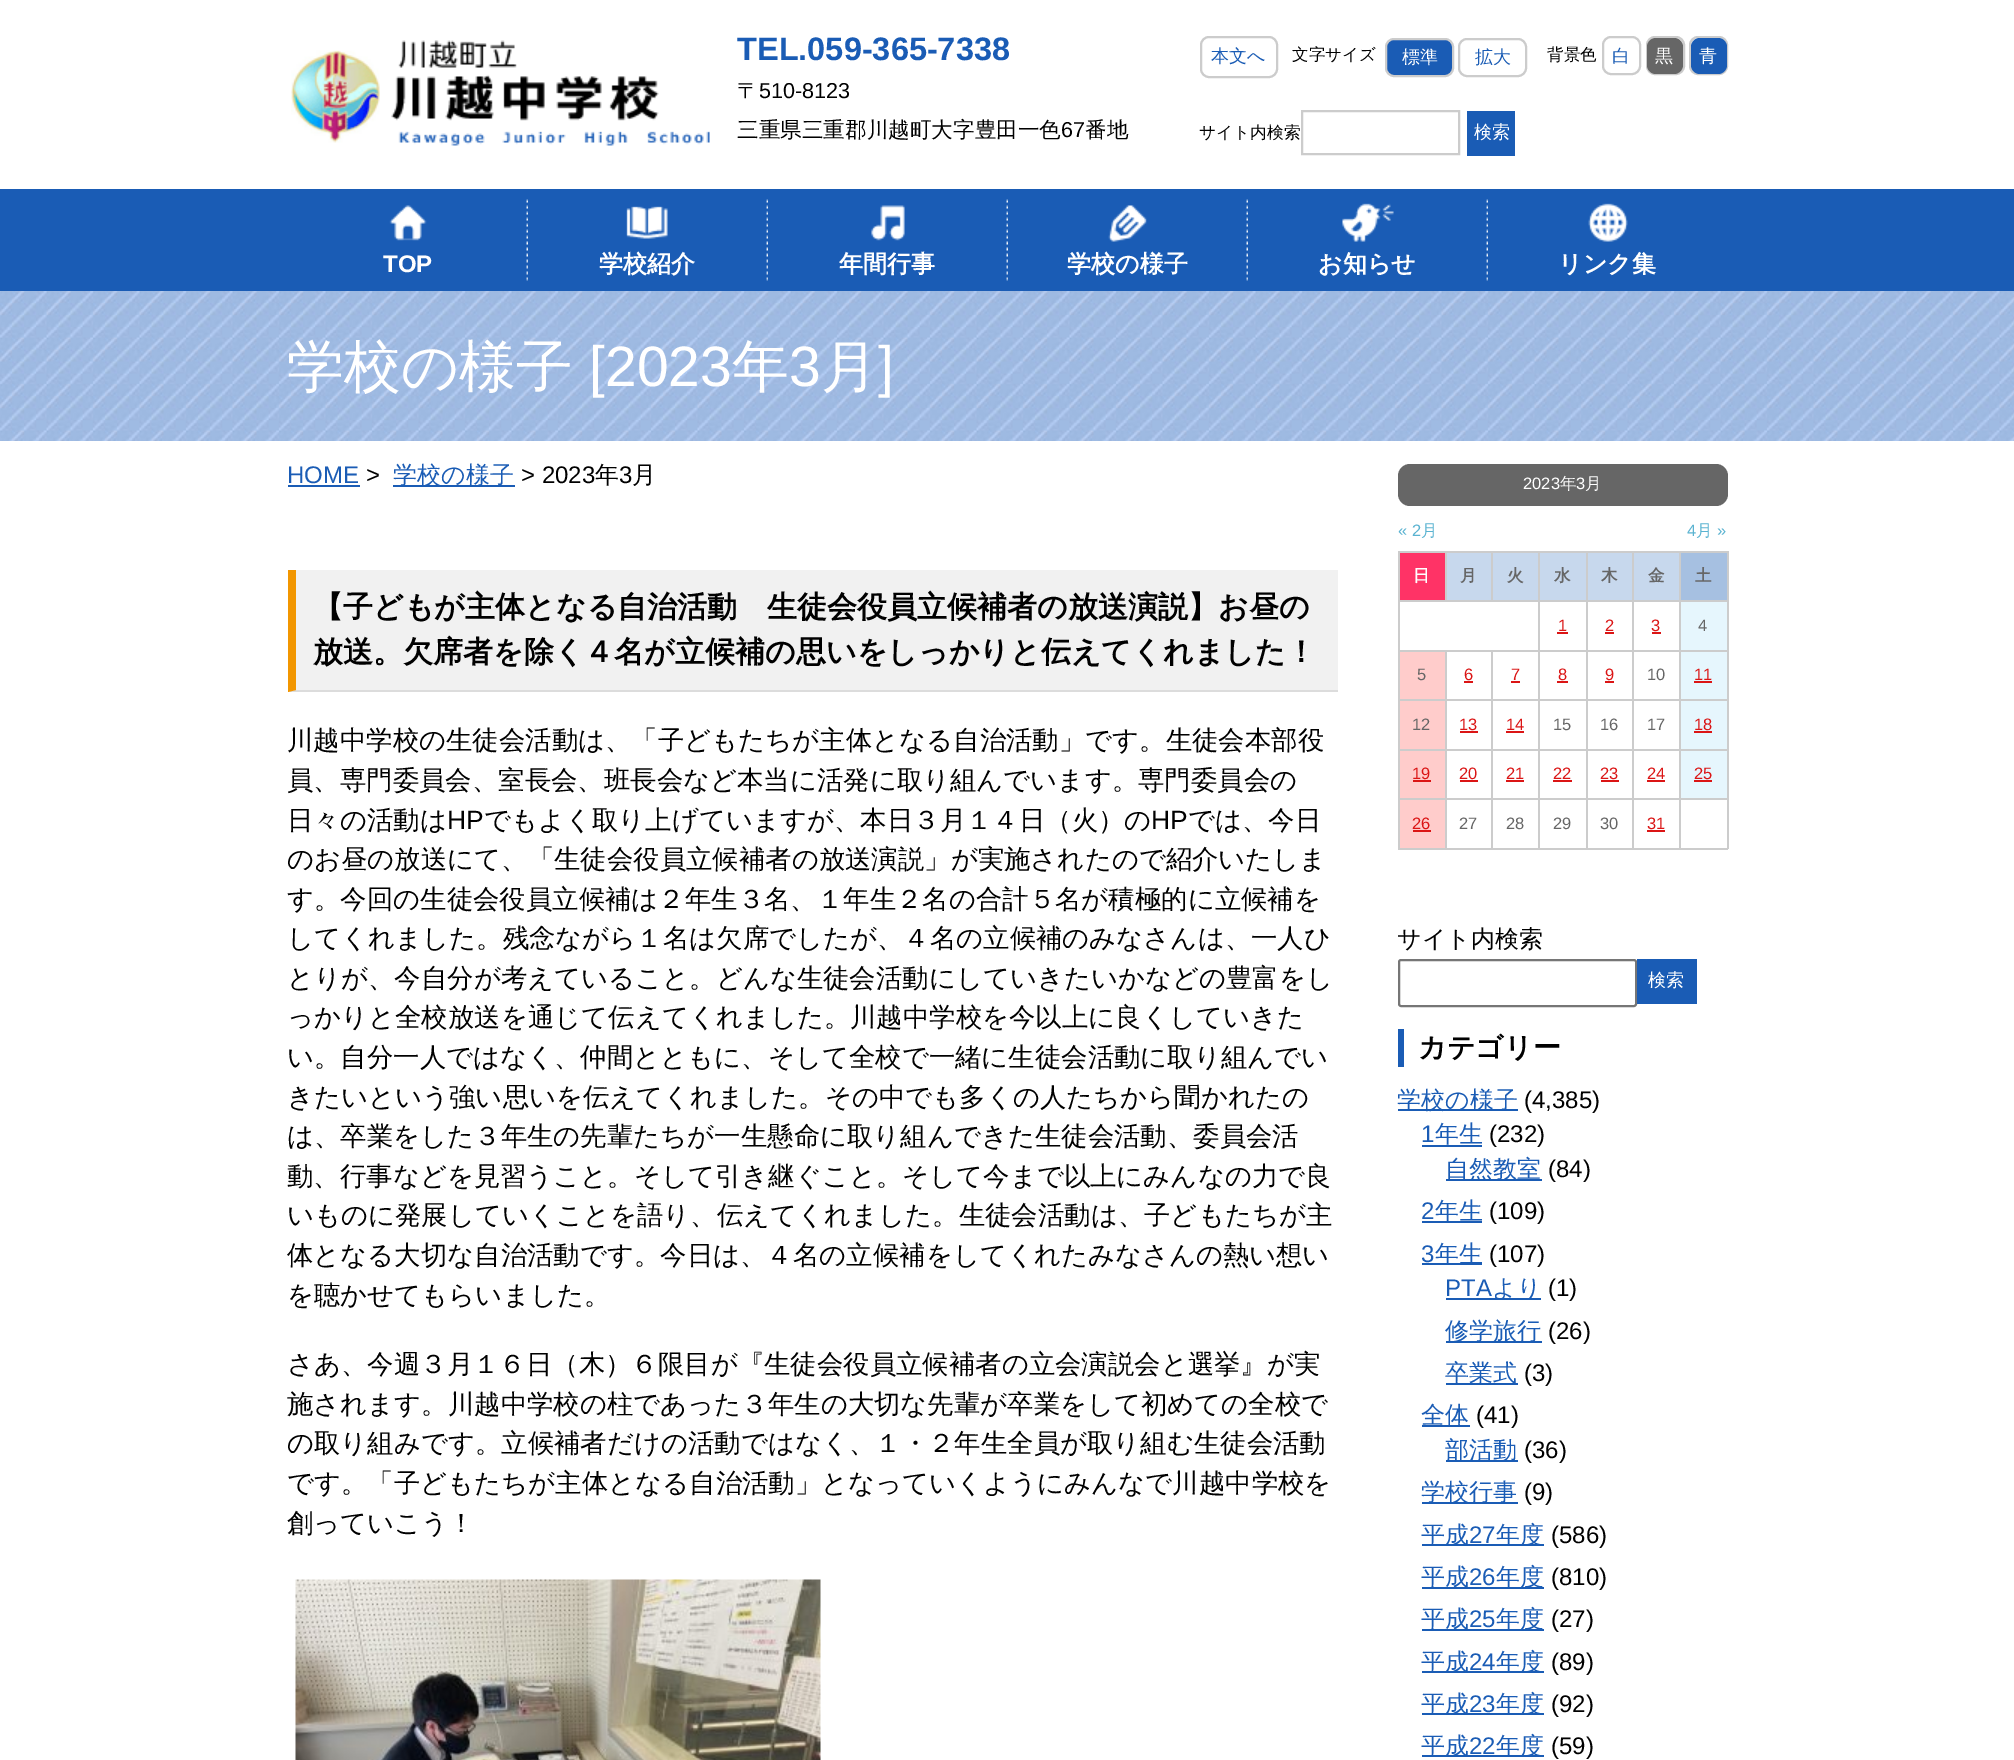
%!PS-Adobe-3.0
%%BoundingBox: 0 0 2014 1760
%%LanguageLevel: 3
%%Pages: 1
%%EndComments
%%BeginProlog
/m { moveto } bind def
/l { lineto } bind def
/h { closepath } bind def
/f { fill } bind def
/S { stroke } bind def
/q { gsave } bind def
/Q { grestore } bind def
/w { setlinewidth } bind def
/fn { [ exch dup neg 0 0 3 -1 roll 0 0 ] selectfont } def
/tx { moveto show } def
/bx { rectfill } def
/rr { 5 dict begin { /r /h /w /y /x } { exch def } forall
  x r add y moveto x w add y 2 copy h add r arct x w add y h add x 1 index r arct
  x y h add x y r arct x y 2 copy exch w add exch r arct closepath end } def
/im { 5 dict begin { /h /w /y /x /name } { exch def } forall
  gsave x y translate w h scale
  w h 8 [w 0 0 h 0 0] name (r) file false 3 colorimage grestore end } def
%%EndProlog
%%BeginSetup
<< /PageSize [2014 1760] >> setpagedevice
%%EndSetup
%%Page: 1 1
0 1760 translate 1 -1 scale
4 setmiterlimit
1 setgray
0 0 2014 1760 bx
(image0.raw) 291 40 419 106 im
/LiberationSans-Bold 32.5 fn
0.102 0.361 0.71 setrgbcolor
(TEL.059-365-7338) 737 60 tx
/WenQuanYiZenHei-Medium 21.6 fn
0 setgray
(〒) 737 98 tx
/LiberationSans-Regular 21.6 fn
(510-8123) 759 98 tx
/WenQuanYiZenHei-Medium 21.6 fn
(三重県三重郡川越町大字豊田一色) 737 137 tx
/LiberationSans-Regular 21.6 fn
(67) 1061 137 tx
/WenQuanYiZenHei-Medium 21.6 fn
(番地) 1085 137 tx
0.8 setgray
2 w
1201 37 76 40 8 rr S
/WenQuanYiZenHei-Medium 18 fn
0.102 0.361 0.71 setrgbcolor
(本文へ) 1211 62 tx
/WenQuanYiZenHei-Medium 16.5 fn
0 setgray
(文字サイズ) 1292 60 tx
0.102 0.361 0.71 setrgbcolor
1386 39 67 37 8 rr q f Q
0.8 setgray
S
/WenQuanYiZenHei-Medium 18 fn
1 setgray
(標準) 1402 63 tx
0.8 setgray
1459 39 67 37 8 rr S
0.102 0.361 0.71 setrgbcolor
(拡大) 1475 63 tx
/WenQuanYiZenHei-Medium 16.5 fn
0 setgray
(背景色) 1547 60 tx
0.8 setgray
1603 37 37 37 8 rr S
/WenQuanYiZenHei-Medium 18 fn
0.102 0.361 0.71 setrgbcolor
(白) 1612 62 tx
0.8 setgray
1647 37 37 37 8 rr S
0.4 setgray
1647 38 36 36 9 rr f
1 setgray
(黒) 1655 62 tx
0.8 setgray
1690 37 37 37 8 rr S
0.102 0.361 0.71 setrgbcolor
1691 38 36 36 9 rr f
1 setgray
(青) 1699 62 tx
/WenQuanYiZenHei-Medium 16.75 fn
0 setgray
(サイト内検索) 1199 138 tx
0.8 setgray
1302 111 157 43 rectstroke
0.102 0.361 0.71 setrgbcolor
1467 111 48 45 bx
/WenQuanYiZenHei-Medium 18 fn
1 setgray
(検索) 1474 138 tx
0.102 0.361 0.71 setrgbcolor
0 189 2014 102 bx
(image1.raw) 389 199 139 82 im
/LiberationSans-Bold 24 fn
1 setgray
(TOP) 383 272 tx
(image2.raw) 626 199 142 82 im
/WenQuanYiZenHei-Bold 24 fn
(学校紹介) 599 272 tx
(image3.raw) 871 199 137 82 im
(年間行事) 839 272 tx
(image4.raw) 1108 199 140 82 im
(学校の様子) 1067 272 tx
(image5.raw) 1342 199 146 82 im
(お知らせ) 1318 272 tx
(image6.raw) 1588 203 40 39 im
(リンク集) 1558 272 tx
(image7.raw) 0 291 2014 150 im
/WenQuanYiZenHei-Medium 57 fn
(学校の様子) 287 386 tx
/LiberationSans-Regular 57 fn
([2023) 589 386 tx
/WenQuanYiZenHei-Medium 57 fn
(年) 732 386 tx
/LiberationSans-Regular 57 fn
(3) 789 386 tx
/WenQuanYiZenHei-Medium 57 fn
(月) 821 386 tx
/LiberationSans-Regular 57 fn
(]) 878 386 tx
/LiberationSans-Regular 24 fn
0.102 0.361 0.71 setrgbcolor
(HOME) 287 483 tx
288 485 72 2 bx
0 setgray
(>) 366 483 tx
0.102 0.361 0.71 setrgbcolor
393 485 122 2 bx
/WenQuanYiZenHei-Medium 24 fn
(学校の様子) 393 483 tx
/LiberationSans-Regular 24 fn
0 setgray
(> 2023) 521 483 tx
/WenQuanYiZenHei-Medium 24 fn
(年) 595 483 tx
/LiberationSans-Regular 24 fn
(3) 619 483 tx
/WenQuanYiZenHei-Medium 24 fn
(月) 632 483 tx
0.945 setgray
288 570 1050 122 bx
0.863 setgray
1338 692 m 288 692 l 296 690 l 1338 690 l h f
0.949 0.588 0 setrgbcolor
288 692 m 288 570 l 296 570 l 296 690 l h f
/WenQuanYiZenHei-Bold 30 fn
0 setgray
(【子どもが主体となる自治活動　生徒会役員立候補者の放送演説】お昼の) 313 617 tx
(放送。欠席者を除く４名が立候補の思いをしっかりと伝えてくれました！) 313 662 tx
/WenQuanYiZenHei-Medium 26.4 fn
(川越中学校の生徒会活動は、「子どもたちが主体となる自治活動」です。生徒会本部役) 287 749 tx
(員、専門委員会、室長会、班長会など本当に活発に取り組んでいます。専門委員会の) 287 789 tx
(日々の活動は) 287 829 tx
/LiberationSans-Regular 26.4 fn
(HP) 447 829 tx
/WenQuanYiZenHei-Medium 26.4 fn
(でもよく取り上げていますが、本日３月１４日（火）の) 484 829 tx
/LiberationSans-Regular 26.4 fn
(HP) 1151 829 tx
/WenQuanYiZenHei-Medium 26.4 fn
(では、今日) 1188 829 tx
(のお昼の放送にて、「生徒会役員立候補者の放送演説」が実施されたので紹介いたしま) 287 868 tx
(す。今回の生徒会役員立候補は２年生３名、１年生２名の合計５名が積極的に立候補を) 287 908 tx
(してくれました。残念ながら１名は欠席でしたが、４名の立候補のみなさんは、一人ひ) 287 947 tx
(とりが、今自分が考えていること。どんな生徒会活動にしていきたいかなどの豊富をし) 287 987 tx
(っかりと全校放送を通じて伝えてくれました。川越中学校を今以上に良くしていきた) 287 1026 tx
(い。自分一人ではなく、仲間とともに、そして全校で一緒に生徒会活動に取り組んでい) 287 1066 tx
(きたいという強い思いを伝えてくれました。その中でも多くの人たちから聞かれたの) 287 1106 tx
(は、卒業をした３年生の先輩たちが一生懸命に取り組んできた生徒会活動、委員会活) 287 1145 tx
(動、行事などを見習うこと。そして引き継ぐこと。そして今まで以上にみんなの力で良) 287 1185 tx
(いものに発展していくことを語り、伝えてくれました。生徒会活動は、子どもたちが主) 287 1224 tx
(体となる大切な自治活動です。今日は、４名の立候補をしてくれたみなさんの熱い想い) 287 1264 tx
(を聴かせてもらいました。) 287 1304 tx
(さあ、今週３月１６日（木）６限目が『生徒会役員立候補者の立会演説会と選挙』が実) 287 1373 tx
(施されます。川越中学校の柱であった３年生の大切な先輩が卒業をして初めての全校で) 287 1413 tx
(の取り組みです。立候補者だけの活動ではなく、１・２年生全員が取り組む生徒会活動) 287 1452 tx
(です。「子どもたちが主体となる自治活動」となっていくようにみんなで川越中学校を) 287 1492 tx
(創っていこう！) 287 1532 tx
(image8.raw) 295 1579 526 181 im
0.4 setgray
1398 464 330 42 12 rr f
/LiberationSans-Regular 16.5 fn
1 setgray
(2023) 1523 489 tx
/WenQuanYiZenHei-Medium 16.5 fn
(年) 1560 489 tx
/LiberationSans-Regular 16.5 fn
(3) 1576 489 tx
/WenQuanYiZenHei-Medium 16.5 fn
(月) 1585 489 tx
/LiberationSans-Regular 16.5 fn
0.353 0.702 0.82 setrgbcolor
(« 2) 1398 536 tx
/WenQuanYiZenHei-Medium 16.5 fn
(月) 1421 536 tx
/LiberationSans-Regular 16.5 fn
(4) 1687 536 tx
/WenQuanYiZenHei-Medium 16.5 fn
(月) 1696 536 tx
/LiberationSans-Regular 16.5 fn
(») 1717 536 tx
1 0.2 0.4 setrgbcolor
1400 553 45 47 bx
0.8 setgray
1679 551 49 2 bx
1398 600 330 2 bx
1398 650 330 2 bx
1398 699 330 2 bx
1398 749 330 2 bx
1398 798 330 2 bx
1727 798 2 51 bx
1398 848 330 2 bx
1679 600 2 249 bx
1679 551 2 51 bx
1632 551 48 2 bx
1632 600 2 249 bx
1632 551 2 51 bx
1586 551 48 2 bx
1586 600 2 249 bx
1586 551 2 51 bx
1538 551 49 2 bx
1538 600 2 249 bx
1538 551 2 51 bx
1491 551 48 2 bx
1491 551 2 51 bx
1445 551 48 2 bx
1445 551 2 51 bx
1398 551 48 2 bx
1398 798 2 51 bx
1398 749 2 51 bx
1398 699 2 51 bx
1398 650 2 51 bx
1398 600 2 51 bx
1398 551 2 51 bx
/WenQuanYiZenHei-Bold 16.5 fn
1 setgray
(日) 1413 581 tx
0.78 0.847 0.929 setrgbcolor
1447 553 44 47 bx
0.4 setgray
(月) 1460 581 tx
0.78 0.847 0.929 setrgbcolor
1493 553 45 47 bx
0.4 setgray
(火) 1507 581 tx
0.78 0.847 0.929 setrgbcolor
1540 553 46 47 bx
0.4 setgray
(水) 1554 581 tx
0.78 0.847 0.929 setrgbcolor
1588 553 44 47 bx
0.4 setgray
(木) 1601 581 tx
0.78 0.847 0.929 setrgbcolor
1634 553 45 47 bx
0.4 setgray
(金) 1648 581 tx
0.651 0.753 0.882 setrgbcolor
1681 553 46 47 bx
0.8 setgray
1727 749 2 51 bx
1727 699 2 51 bx
1727 650 2 51 bx
1727 600 2 51 bx
1727 551 2 51 bx
0.4 setgray
(土) 1695 581 tx
/LiberationSans-Regular 16.5 fn
0.859 0.082 0.082 setrgbcolor
(1) 1558 631 tx
1557 632 11 2 bx
(2) 1605 631 tx
1605 632 9 2 bx
(3) 1651 631 tx
1652 632 9 2 bx
0.902 0.965 0.992 setrgbcolor
1681 602 46 48 bx
0.4 setgray
(4) 1698 631 tx
1 0.8 0.796 setrgbcolor
1400 652 45 47 bx
0.4 setgray
(5) 1417 680 tx
0.859 0.082 0.082 setrgbcolor
(6) 1464 680 tx
1464 681 9 2 bx
(7) 1511 680 tx
1511 681 9 2 bx
(8) 1558 680 tx
1557 681 11 2 bx
(9) 1605 680 tx
1605 681 9 2 bx
0.4 setgray
(10) 1647 680 tx
0.902 0.965 0.992 setrgbcolor
1681 652 46 47 bx
0.859 0.082 0.082 setrgbcolor
(11) 1694 680 tx
1694 681 18 2 bx
1 0.8 0.796 setrgbcolor
1400 701 45 48 bx
0.4 setgray
(12) 1412 730 tx
0.859 0.082 0.082 setrgbcolor
(13) 1459 730 tx
1460 731 18 2 bx
(14) 1506 730 tx
1506 731 18 2 bx
0.4 setgray
(15) 1553 730 tx
(16) 1600 730 tx
(17) 1647 730 tx
0.902 0.965 0.992 setrgbcolor
1681 701 46 48 bx
0.859 0.082 0.082 setrgbcolor
(18) 1694 730 tx
1694 731 18 2 bx
1 0.8 0.796 setrgbcolor
1400 751 45 47 bx
0.859 0.082 0.082 setrgbcolor
(19) 1412 779 tx
1413 780 18 2 bx
(20) 1459 779 tx
1460 780 18 2 bx
(21) 1506 779 tx
1506 780 18 2 bx
(22) 1553 779 tx
1553 780 19 2 bx
(23) 1600 779 tx
1601 780 18 2 bx
(24) 1647 779 tx
1647 780 18 2 bx
0.902 0.965 0.992 setrgbcolor
1681 751 46 47 bx
0.859 0.082 0.082 setrgbcolor
(25) 1694 779 tx
1694 780 18 2 bx
1 0.8 0.796 setrgbcolor
1400 800 45 48 bx
0.859 0.082 0.082 setrgbcolor
(26) 1412 829 tx
1413 830 18 2 bx
0.8 setgray
1445 650 2 199 bx
0.4 setgray
(27) 1459 829 tx
0.8 setgray
1491 650 2 199 bx
0.4 setgray
(28) 1506 829 tx
(29) 1553 829 tx
(30) 1600 829 tx
0.859 0.082 0.082 setrgbcolor
(31) 1647 829 tx
1647 830 18 2 bx
/WenQuanYiZenHei-Medium 24 fn
0 setgray
(サイト内検索) 1397 947 tx
0.463 setgray
1399 960 237 46 2 rr S
0.102 0.361 0.71 setrgbcolor
1637 959 60 45 bx
/WenQuanYiZenHei-Medium 18 fn
1 setgray
(検索) 1648 986 tx
0.102 0.361 0.71 setrgbcolor
1398 1029 6 38 bx
/WenQuanYiZenHei-Bold 28 fn
0 setgray
(カテゴリー) 1418 1057 tx
0.102 0.361 0.71 setrgbcolor
1398 1109 120 2 bx
/WenQuanYiZenHei-Medium 24 fn
(学校の様子) 1397 1108 tx
/LiberationSans-Regular 24 fn
0 setgray
(\(4,385\)) 1524 1108 tx
0.102 0.361 0.71 setrgbcolor
(1) 1421 1142 tx
1422 1145 60 2 bx
/WenQuanYiZenHei-Medium 24 fn
(年生) 1435 1142 tx
/LiberationSans-Regular 24 fn
0 setgray
(\(232\)) 1489 1142 tx
0.102 0.361 0.71 setrgbcolor
1446 1179 96 2 bx
/WenQuanYiZenHei-Medium 24 fn
(自然教室) 1445 1177 tx
/LiberationSans-Regular 24 fn
0 setgray
(\(84\)) 1548 1177 tx
0.102 0.361 0.71 setrgbcolor
(2) 1421 1219 tx
1422 1221 60 2 bx
/WenQuanYiZenHei-Medium 24 fn
(年生) 1435 1219 tx
/LiberationSans-Regular 24 fn
0 setgray
(\(109\)) 1489 1219 tx
0.102 0.361 0.71 setrgbcolor
(3) 1421 1262 tx
1422 1263 60 2 bx
/WenQuanYiZenHei-Medium 24 fn
(年生) 1435 1262 tx
/LiberationSans-Regular 24 fn
0 setgray
(\(107\)) 1489 1262 tx
0.102 0.361 0.71 setrgbcolor
(PTA) 1445 1296 tx
1446 1298 95 2 bx
/WenQuanYiZenHei-Medium 24 fn
(より) 1492 1296 tx
/LiberationSans-Regular 24 fn
0 setgray
(\(1\)) 1548 1296 tx
0.102 0.361 0.71 setrgbcolor
1446 1341 96 2 bx
/WenQuanYiZenHei-Medium 24 fn
(修学旅行) 1445 1339 tx
/LiberationSans-Regular 24 fn
0 setgray
(\(26\)) 1548 1339 tx
0.102 0.361 0.71 setrgbcolor
1446 1383 72 2 bx
/WenQuanYiZenHei-Medium 24 fn
(卒業式) 1445 1381 tx
/LiberationSans-Regular 24 fn
0 setgray
(\(3\)) 1524 1381 tx
0.102 0.361 0.71 setrgbcolor
1422 1425 48 2 bx
/WenQuanYiZenHei-Medium 24 fn
(全体) 1421 1423 tx
/LiberationSans-Regular 24 fn
0 setgray
(\(41\)) 1476 1423 tx
0.102 0.361 0.71 setrgbcolor
1446 1460 72 2 bx
/WenQuanYiZenHei-Medium 24 fn
(部活動) 1445 1458 tx
/LiberationSans-Regular 24 fn
0 setgray
(\(36\)) 1524 1458 tx
0.102 0.361 0.71 setrgbcolor
1422 1502 96 2 bx
/WenQuanYiZenHei-Medium 24 fn
(学校行事) 1421 1500 tx
/LiberationSans-Regular 24 fn
0 setgray
(\(9\)) 1524 1500 tx
0.102 0.361 0.71 setrgbcolor
1422 1544 122 2 bx
/WenQuanYiZenHei-Medium 24 fn
(平成) 1421 1543 tx
/LiberationSans-Regular 24 fn
(27) 1469 1543 tx
/WenQuanYiZenHei-Medium 24 fn
(年度) 1496 1543 tx
/LiberationSans-Regular 24 fn
0 setgray
(\(586\)) 1551 1543 tx
0.102 0.361 0.71 setrgbcolor
1422 1587 122 2 bx
/WenQuanYiZenHei-Medium 24 fn
(平成) 1421 1585 tx
/LiberationSans-Regular 24 fn
(26) 1469 1585 tx
/WenQuanYiZenHei-Medium 24 fn
(年度) 1496 1585 tx
/LiberationSans-Regular 24 fn
0 setgray
(\(810\)) 1551 1585 tx
0.102 0.361 0.71 setrgbcolor
1422 1629 122 2 bx
/WenQuanYiZenHei-Medium 24 fn
(平成) 1421 1627 tx
/LiberationSans-Regular 24 fn
(25) 1469 1627 tx
/WenQuanYiZenHei-Medium 24 fn
(年度) 1496 1627 tx
/LiberationSans-Regular 24 fn
0 setgray
(\(27\)) 1551 1627 tx
0.102 0.361 0.71 setrgbcolor
1422 1671 122 2 bx
/WenQuanYiZenHei-Medium 24 fn
(平成) 1421 1670 tx
/LiberationSans-Regular 24 fn
(24) 1469 1670 tx
/WenQuanYiZenHei-Medium 24 fn
(年度) 1496 1670 tx
/LiberationSans-Regular 24 fn
0 setgray
(\(89\)) 1551 1670 tx
0.102 0.361 0.71 setrgbcolor
1422 1713 122 2 bx
/WenQuanYiZenHei-Medium 24 fn
(平成) 1421 1712 tx
/LiberationSans-Regular 24 fn
(23) 1469 1712 tx
/WenQuanYiZenHei-Medium 24 fn
(年度) 1496 1712 tx
/LiberationSans-Regular 24 fn
0 setgray
(\(92\)) 1551 1712 tx
0.102 0.361 0.71 setrgbcolor
1422 1755 122 2 bx
/WenQuanYiZenHei-Medium 24 fn
(平成) 1421 1754 tx
/LiberationSans-Regular 24 fn
(22) 1469 1754 tx
/WenQuanYiZenHei-Medium 24 fn
(年度) 1496 1754 tx
/LiberationSans-Regular 24 fn
0 setgray
(\(59\)) 1551 1754 tx
showpage
%%EOF
